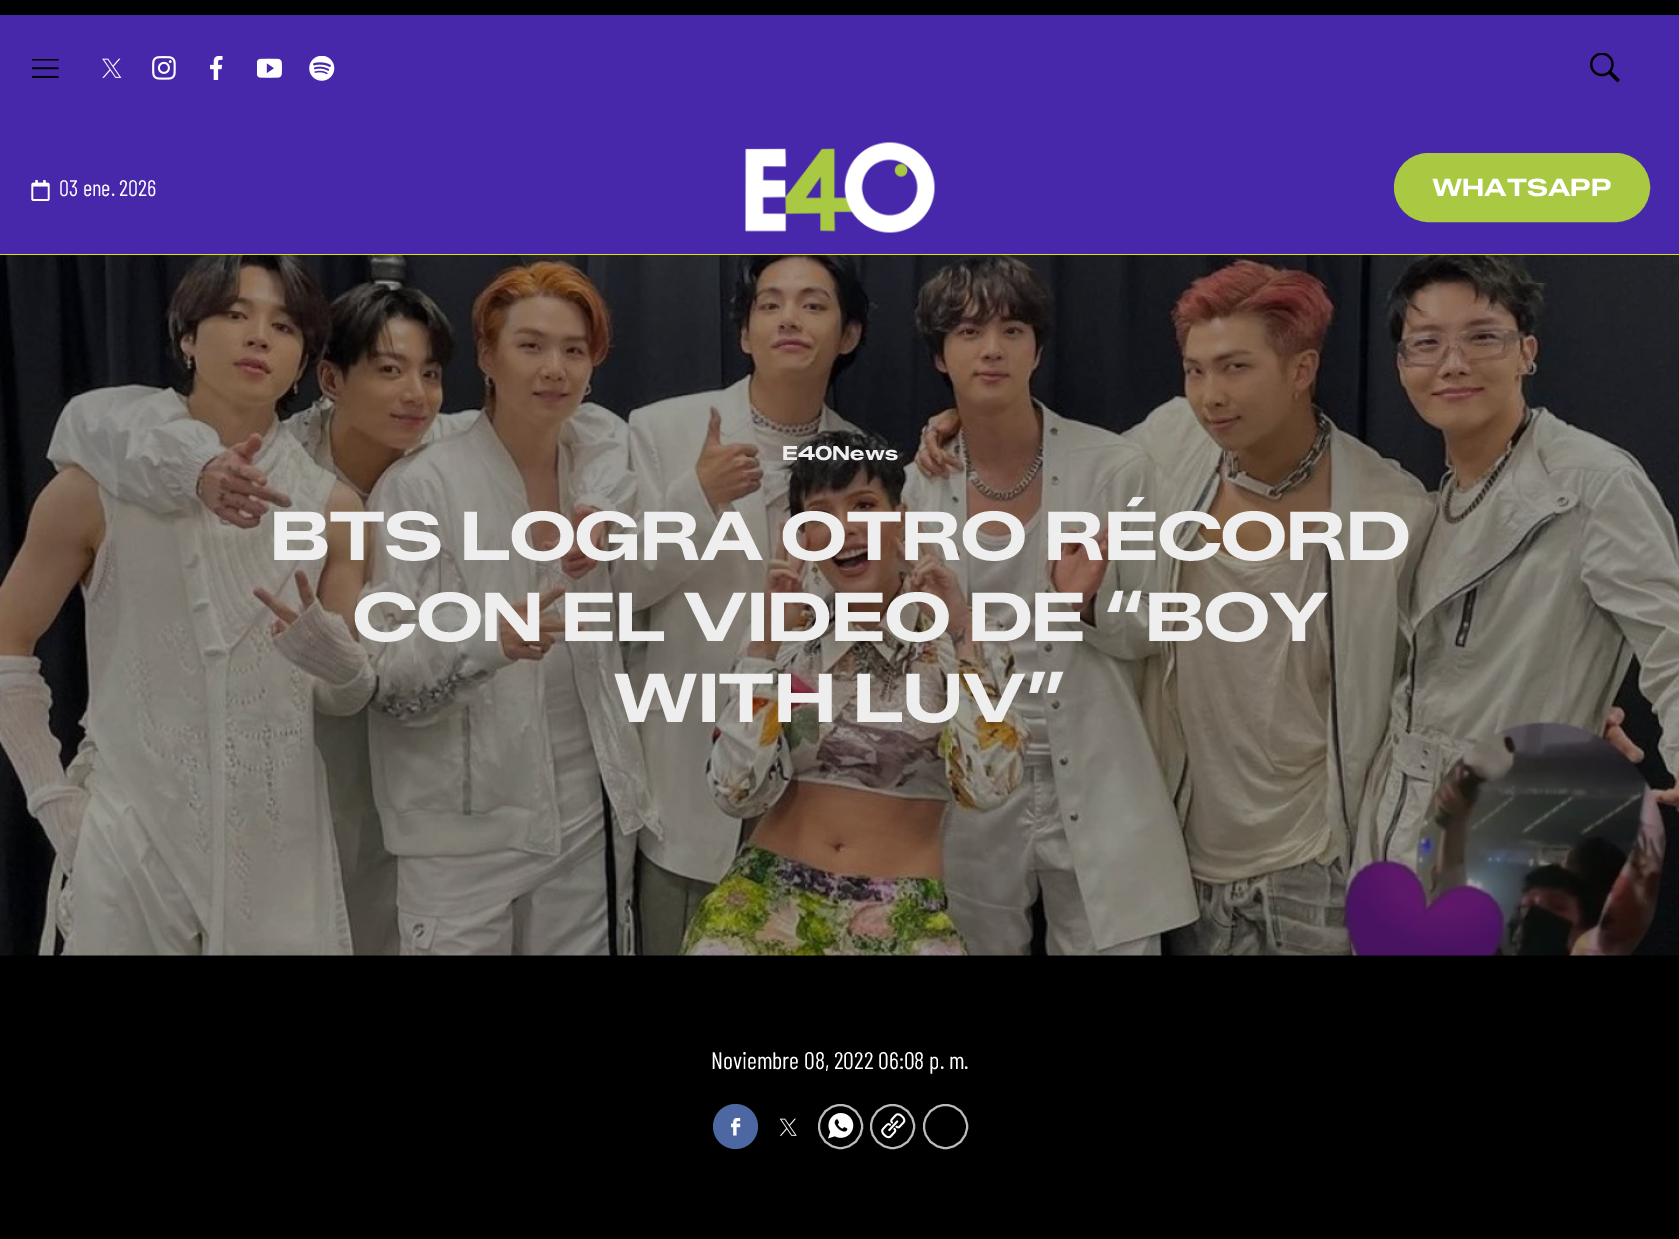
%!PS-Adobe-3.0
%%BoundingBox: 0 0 1679 1239
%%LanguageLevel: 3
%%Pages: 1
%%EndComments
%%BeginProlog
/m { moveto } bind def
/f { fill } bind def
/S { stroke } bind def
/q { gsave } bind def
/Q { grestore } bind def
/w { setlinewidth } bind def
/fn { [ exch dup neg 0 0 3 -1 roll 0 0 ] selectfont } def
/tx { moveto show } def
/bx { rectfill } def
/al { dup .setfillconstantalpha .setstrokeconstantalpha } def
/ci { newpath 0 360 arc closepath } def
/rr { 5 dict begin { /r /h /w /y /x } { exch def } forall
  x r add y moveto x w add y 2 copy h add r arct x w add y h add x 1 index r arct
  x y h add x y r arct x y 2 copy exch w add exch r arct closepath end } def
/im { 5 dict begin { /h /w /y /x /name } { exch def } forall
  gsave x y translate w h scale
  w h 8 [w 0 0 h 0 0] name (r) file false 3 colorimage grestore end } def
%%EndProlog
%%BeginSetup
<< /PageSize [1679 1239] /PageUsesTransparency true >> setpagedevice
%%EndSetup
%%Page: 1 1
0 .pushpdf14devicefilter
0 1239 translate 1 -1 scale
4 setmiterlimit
0 setgray
0 0 1679 1239 bx
0.278 0.157 0.667 setrgbcolor
0 15 1679 239 bx
(image0.raw) 32 59 27 19 im
(image1.raw) 102 58 20 20 im
(image2.raw) 152 56 24 24 im
(image3.raw) 210 56 13 24 im
(image4.raw) 257 58 25 20 im
(image5.raw) 309 56 26 25 im
(image6.raw) 1590 53 30 30 im
0.851 0.894 0 setrgbcolor
0 254 1679 1 bx
(image7.raw) 31 180 19 21 im
/BarlowCondensed-Regular 22.5 fn
1 setgray
(03 ene. 2026) 59 196 tx
(image8.raw) 745 142 190 91 im
0.659 0.788 0.255 setrgbcolor
1395 154 254 67 33.5 rr q f Q
2 w
S
/ZalandoSansExpanded-Bold 24 fn
1 setgray
(WHATSAPP) 1432 196 tx
(image9.raw) 0 255 1679 701 im
0.4 al
0 setgray
0 255 1679 701 bx
/ZalandoSansExpanded-Bold 19.5 fn
1 al
0.933 setgray
(E40News) 782 460 tx
/ZalandoSansExpanded-Bold 67.5 fn
270 560 m -0.75 0 (BTS LOGRA OTRO RÉCORD) ashow
353 641 m -0.75 0 (CON EL VIDEO DE “BOY) ashow
613 722 m -0.75 0 (WITH LUV”) ashow
/BarlowCondensed-Regular 24 fn
1 setgray
(Noviembre 08, 2022 06:08 p. m.) 711 1069 tx
0.298 0.404 0.631 setrgbcolor
735.5 1126.5 22.5 ci f
(image10.raw) 731 1118 10 18 im
(image11.raw) 779 1118 18 18 im
0.733 setgray
840.5 1126.5 21.5 ci S
(image12.raw) 828 1113 26 26 im
892.5 1126.5 21.5 ci S
(image13.raw) 881 1113 25 26 im
945.5 1126.5 21.5 ci S
.poppdf14devicefilter showpage
%%EOF
